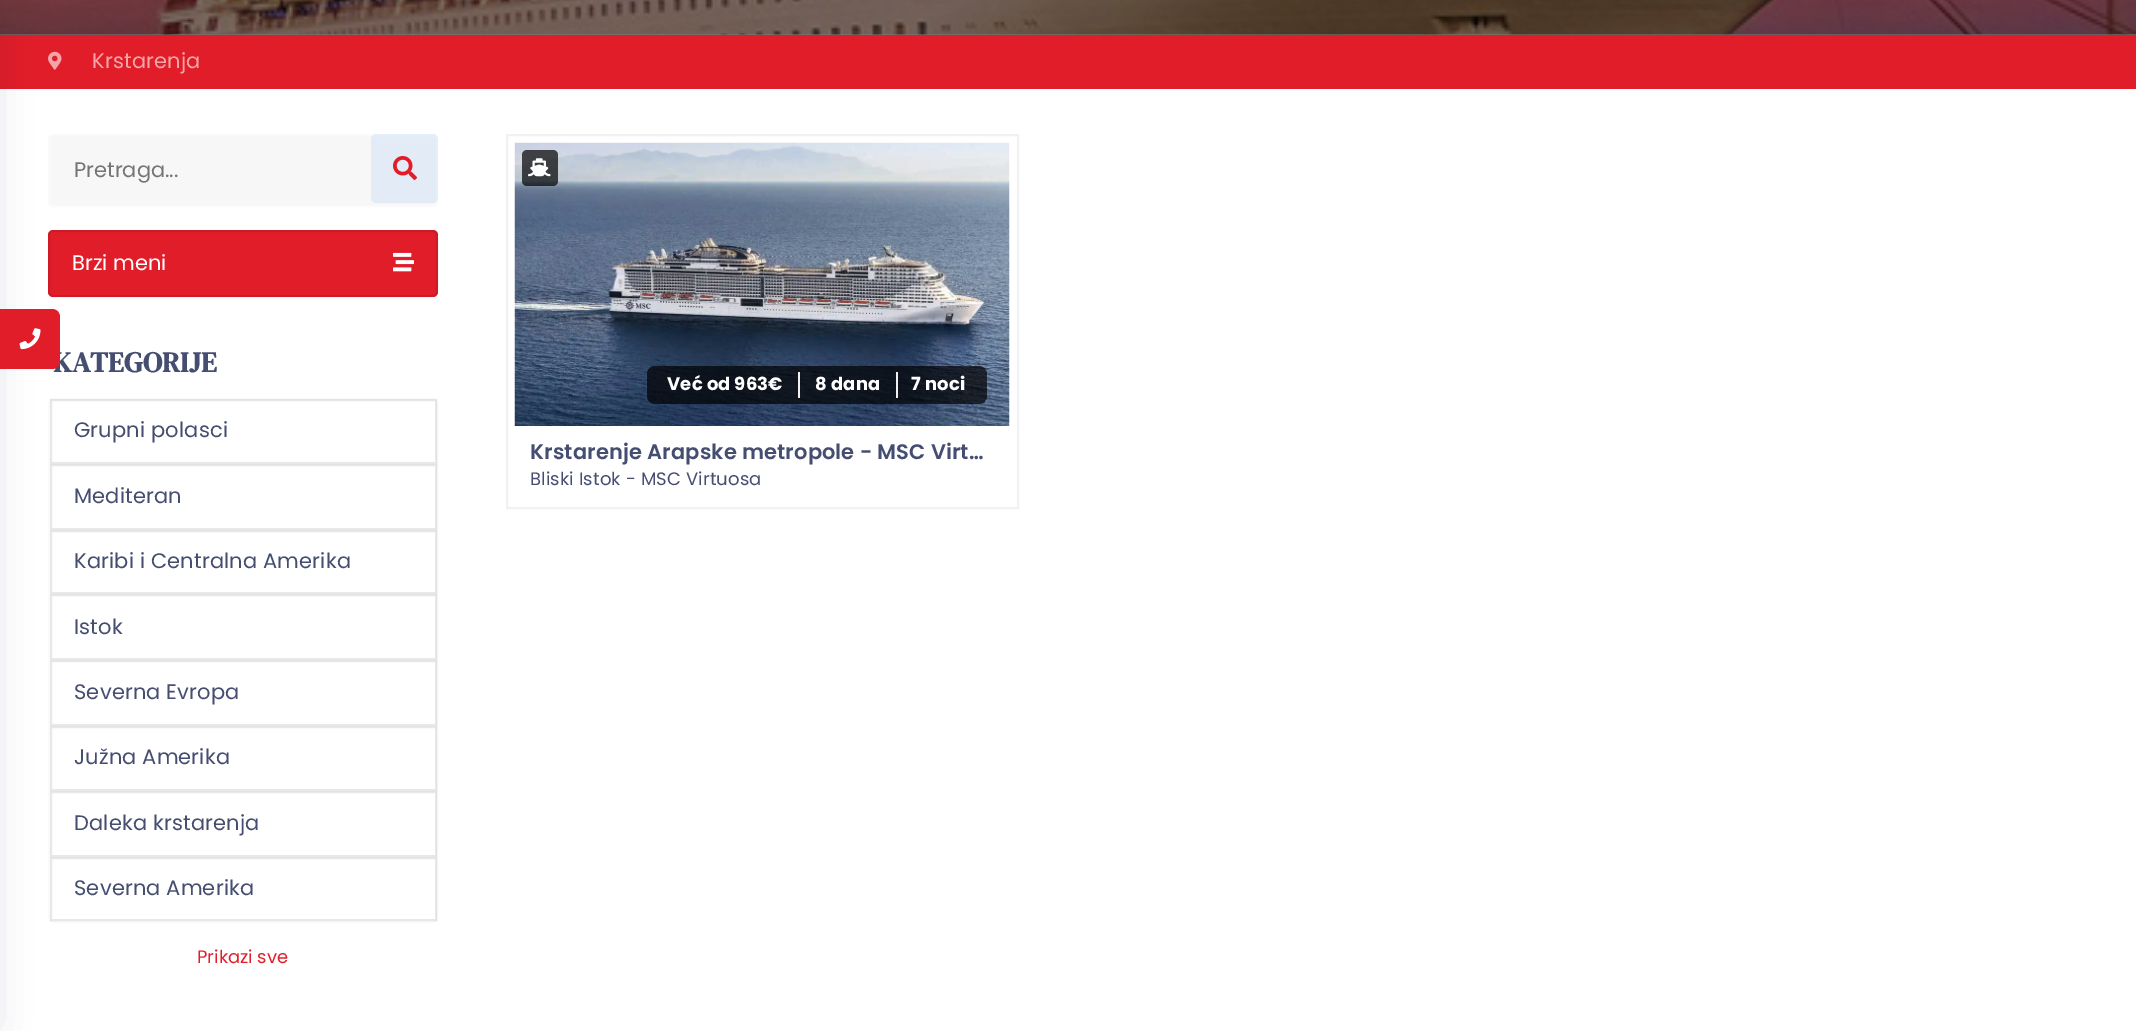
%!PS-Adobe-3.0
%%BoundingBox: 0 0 2136 1031
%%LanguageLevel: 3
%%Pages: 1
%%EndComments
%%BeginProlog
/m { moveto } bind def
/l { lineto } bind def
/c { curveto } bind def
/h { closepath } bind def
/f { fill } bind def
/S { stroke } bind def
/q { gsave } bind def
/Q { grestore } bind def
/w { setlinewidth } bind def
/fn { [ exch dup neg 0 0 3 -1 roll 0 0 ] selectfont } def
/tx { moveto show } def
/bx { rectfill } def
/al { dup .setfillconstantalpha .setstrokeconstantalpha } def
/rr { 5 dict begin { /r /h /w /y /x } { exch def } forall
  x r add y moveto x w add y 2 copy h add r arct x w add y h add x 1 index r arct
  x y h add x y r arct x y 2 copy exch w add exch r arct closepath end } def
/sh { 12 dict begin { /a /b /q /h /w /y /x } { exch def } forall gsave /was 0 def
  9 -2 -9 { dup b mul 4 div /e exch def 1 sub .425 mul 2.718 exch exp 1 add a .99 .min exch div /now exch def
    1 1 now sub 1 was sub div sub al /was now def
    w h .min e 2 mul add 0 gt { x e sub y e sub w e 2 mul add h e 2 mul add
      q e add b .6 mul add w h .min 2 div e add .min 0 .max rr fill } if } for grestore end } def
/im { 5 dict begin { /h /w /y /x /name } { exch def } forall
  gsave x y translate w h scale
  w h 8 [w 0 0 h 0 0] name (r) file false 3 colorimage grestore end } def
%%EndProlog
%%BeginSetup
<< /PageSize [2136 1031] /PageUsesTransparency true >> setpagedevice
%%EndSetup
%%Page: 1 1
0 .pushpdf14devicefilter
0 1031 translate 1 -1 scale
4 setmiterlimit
1 setgray
0 0 2136 1031 bx
0.502 setgray
0 34 2136 1 bx
(image1.raw) 0 0 2136 35 im
0.882 0.114 0.161 setrgbcolor
0 35 2136 54 bx
0 0.11 0.224 setrgbcolor
-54 8 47 1017 0 18 0.15 sh
/DMSerifText-Bold 28.5 fn
0.271 0.306 0.443 setrgbcolor
53 372 m 0.15 0 (KATEGORIJE) ashow
0.882 0.114 0.161 setrgbcolor
0 309 m 52 309 l 56.5 309 60 312.5 60 317 c 60 361 l 60 365.5 56.5 369 52 369 c 0 369 l h f
(image0.raw) 19 328 22 22 im
(image2.raw) 48 51 14 19 im
/Poppins-Regular 21 fn
0.953 0.647 0.663 setrgbcolor
92 68 m 0.15 0 (Krstarenja) ashow
0.969 setgray
49 135 388 71 4 rr q f Q
0.98 setgray
2 w
S
0.459 setgray
(Pretraga...) 74 177 tx
0.1 al
0.188 0.557 0.918 setrgbcolor
371 134 67 69 5 rr f
1 al
(image3.raw) 393 156 24 24 im
0.882 0.114 0.161 setrgbcolor
48 230 390 67 5 rr f
0.09 al
0 setgray
49 231 388 65 4 rr S
1 al
1 setgray
(Brzi meni) 72 270 tx
(image4.raw) 393 252 21 20 im
0.98 setgray
49 399 388 523 4 rr S
0.09 al
0 setgray
51 400 385 63 rectstroke
1 al
0.271 0.306 0.443 setrgbcolor
74 437 m 0.15 0 (Grupni polasci) ashow
0.09 al
0 setgray
51 465 385 64 rectstroke
1 al
0.271 0.306 0.443 setrgbcolor
74 503 m 0.15 0 (Mediteran) ashow
0.09 al
0 setgray
51 531 385 62 rectstroke
1 al
0.271 0.306 0.443 setrgbcolor
74 568 m 0.15 0 (Karibi i Centralna Amerika) ashow
0.09 al
0 setgray
51 595 385 64 rectstroke
1 al
0.271 0.306 0.443 setrgbcolor
74 634 m 0.15 0 (Istok) ashow
0.09 al
0 setgray
51 661 385 64 rectstroke
1 al
0.271 0.306 0.443 setrgbcolor
74 699 m 0.15 0 (Severna Evropa) ashow
0.09 al
0 setgray
51 727 385 63 rectstroke
1 al
0.271 0.306 0.443 setrgbcolor
74 764 m 0.15 0 (Južna Amerika) ashow
0.09 al
0 setgray
51 792 385 64 rectstroke
1 al
0.271 0.306 0.443 setrgbcolor
74 830 m 0.15 0 (Daleka krstarenja) ashow
0.09 al
0 setgray
51 858 385 62 rectstroke
1 al
0.271 0.306 0.443 setrgbcolor
74 895 m 0.15 0 (Severna Amerika) ashow
/Poppins-Regular 18 fn
0.882 0.114 0.161 setrgbcolor
(Prikazi sve) 197 963 tx
0.945 setgray
507 135 511 373 rectstroke
(image5.raw) 514 142 496 284 im
0.7 al
0 setgray
522 150 36 36 5 rr f
1 al
(image6.raw) 528 158 23 19 im
0.7 al
647 366 340 38 8 rr f
1 al
0.945 setgray
798 372 2 26 bx
/Poppins-Bold 18 fn
1 setgray
667 390 m 0.15 0 (Već od 963€) ashow
0.945 setgray
896 372 2 26 bx
1 setgray
815 390 m 0.15 0 (8 dana) ashow
911 390 m 0.15 0 (7 noci) ashow
/Poppins-SemiBold 21 fn
0.271 0.306 0.443 setrgbcolor
530 459 m 0.15 0 (Krstarenje Arapske metropole - MSC Virt…) ashow
/Poppins-Regular 18 fn
530 485 m 0.15 0 (Bliski Istok - MSC Virtuosa) ashow
.poppdf14devicefilter showpage
%%EOF
